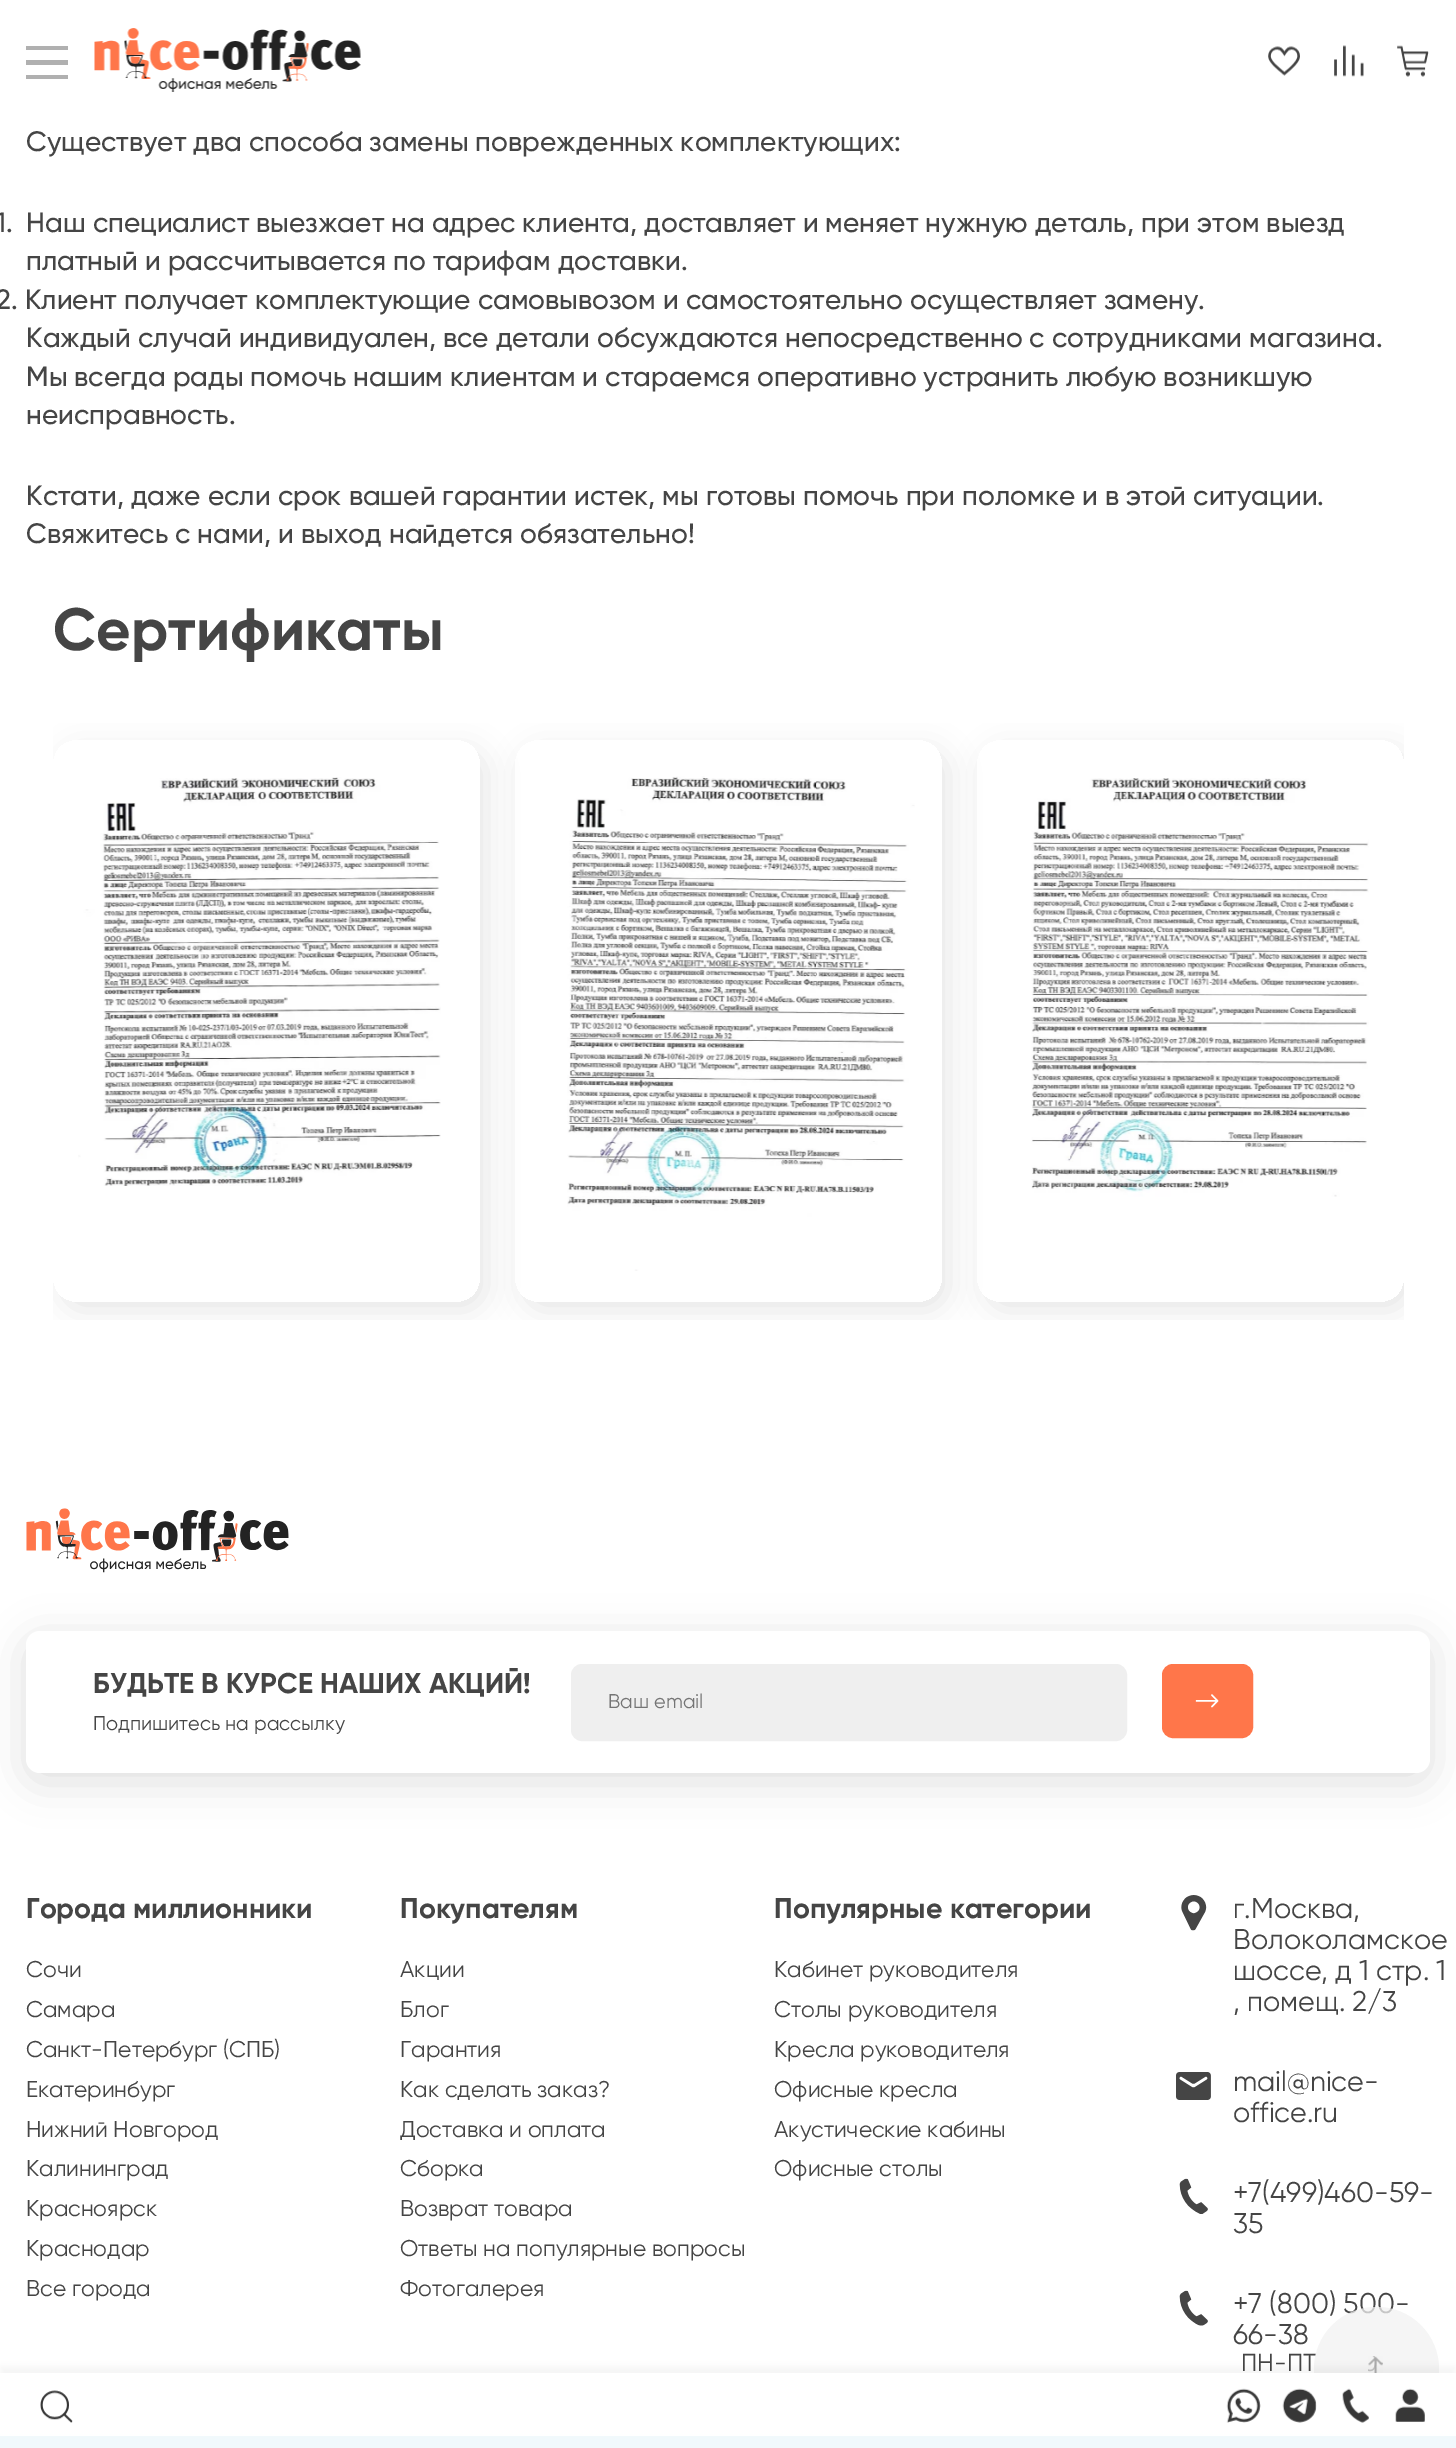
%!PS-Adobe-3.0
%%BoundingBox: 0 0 1456 2448
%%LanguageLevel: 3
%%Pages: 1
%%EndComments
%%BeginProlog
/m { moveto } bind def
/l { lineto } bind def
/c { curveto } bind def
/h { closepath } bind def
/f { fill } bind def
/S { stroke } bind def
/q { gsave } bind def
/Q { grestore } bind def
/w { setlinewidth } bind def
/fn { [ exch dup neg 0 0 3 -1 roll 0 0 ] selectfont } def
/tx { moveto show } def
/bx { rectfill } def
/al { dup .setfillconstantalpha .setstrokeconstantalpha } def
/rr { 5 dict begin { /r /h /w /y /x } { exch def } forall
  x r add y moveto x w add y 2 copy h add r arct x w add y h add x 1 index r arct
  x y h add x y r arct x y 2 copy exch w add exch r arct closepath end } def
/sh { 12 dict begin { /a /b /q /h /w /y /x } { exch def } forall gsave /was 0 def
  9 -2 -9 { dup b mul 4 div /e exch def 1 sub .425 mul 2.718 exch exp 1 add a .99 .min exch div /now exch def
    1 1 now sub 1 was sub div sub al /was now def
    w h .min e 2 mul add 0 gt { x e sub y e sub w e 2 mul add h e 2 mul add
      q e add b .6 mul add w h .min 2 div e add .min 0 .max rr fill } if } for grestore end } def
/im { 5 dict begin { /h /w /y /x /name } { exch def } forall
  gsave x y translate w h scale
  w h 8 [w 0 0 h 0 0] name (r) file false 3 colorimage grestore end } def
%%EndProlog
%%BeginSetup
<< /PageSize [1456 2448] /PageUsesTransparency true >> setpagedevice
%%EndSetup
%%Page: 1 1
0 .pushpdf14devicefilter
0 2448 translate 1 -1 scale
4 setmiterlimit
1 setgray
0 0 1456 2448 bx
0.69 setgray
26 46 42 4 bx
26 60 42 5 bx
26 75 42 4 bx
(image0.raw) 94 28 267 64 im
(image1.raw) 1268 46 32 30 im
(image2.raw) 1334 45 30 32 im
(image3.raw) 1397 45 32 32 im
/Gilroy-Regular 28.5 fn
0.271 setgray
(+7 \(800\) 500-) 1233 2313 tx
/Gilroy-Regular 24.5 fn
(ПН-ПТ) 1241 2371 tx
0.75 al
0.945 setgray
1314 2307 125 124 62 rr f
1 al
(image18.raw) 1368 2356 15 17 im
0 setgray
0 2366 1456 75 0 3.5 0.04 sh
1 setgray
0 2373 1456 63 bx
(image4.raw) 40 2390 33 33 im
(image5.raw) 1226 2388 35 35 im
(image6.raw) 1282 2388 35 35 im
(image7.raw) 1342 2388 27 35 im
(image8.raw) 1395 2388 30 34 im
/Gilroy-Medium 28 fn
0.271 setgray
(Существует два способа замены поврежденных комплектующих:) 26 151 tx
(1.) -4 232 tx
(Наш специалист выезжает на адрес клиента, доставляет и меняет нужную деталь, при этом выезд) 26 232 tx
(платный и рассчитывается по тарифам доставки.) 26 270 tx
(2. Клиент получает комплектующие самовывозом и самостоятельно осуществляет замену.) -4 309 tx
(Каждый случай индивидуален, все детали обсуждаются непосредственно с сотрудниками магазина.) 26 347 tx
(Мы всегда рады помочь нашим клиентам и стараемся оперативно устранить любую возникшую) 26 386 tx
(неисправность.) 26 424 tx
(Кстати, даже если срок вашей гарантии истек, мы готовы помочь при поломке и в этой ситуации.) 26 505 tx
(Свяжитесь с нами, и выход найдется обязательно!) 26 543 tx
/Gilroy-Bold 59.5 fn
(Сертификаты) 53 650 tx
q
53 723 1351 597 rectclip
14 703 m 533 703 l 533 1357 l 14 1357 l h 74 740 m 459 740 l 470.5 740 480 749.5 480 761 c 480 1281 l 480 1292.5 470.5 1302 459 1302 c 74 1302 l 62.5 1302 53 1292.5 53 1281 c 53 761 l 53 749.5 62.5 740 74 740 c h eoclip newpath
0 setgray
60 749 427 562 21 15 0.09 sh
Q
(image9.raw) 78 777 363 409 im
q
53 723 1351 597 rectclip
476 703 m 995 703 l 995 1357 l 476 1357 l h 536 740 m 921 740 l 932.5 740 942 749.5 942 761 c 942 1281 l 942 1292.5 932.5 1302 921 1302 c 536 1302 l 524.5 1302 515 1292.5 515 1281 c 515 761 l 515 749.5 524.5 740 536 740 c h eoclip newpath
0 setgray
522 749 427 562 21 15 0.09 sh
Q
(image10.raw) 567 776 348 495 im
q
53 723 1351 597 rectclip
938 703 m 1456 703 l 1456 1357 l 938 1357 l h 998 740 m 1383 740 l 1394.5 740 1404 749.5 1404 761 c 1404 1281 l 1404 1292.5 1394.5 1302 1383 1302 c 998 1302 l 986.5 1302 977 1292.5 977 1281 c 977 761 l 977 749.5 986.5 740 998 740 c h eoclip newpath
0 setgray
984 749 427 562 21 15 0.09 sh
Q
(image11.raw) 1031 778 338 419 im
(image12.raw) 26 1508 263 65 im
0 setgray
26 1640 1404 142 14 21 0.12 sh
1 setgray
26 1631 1404 142 14 rr f
/Gilroy-Bold 28.5 fn
0.271 setgray
(БУДЬТЕ В КУРСЕ НАШИХ АКЦИЙ!) 93 1693 tx
/Gilroy-Regular 19.9 fn
(Подпишитесь на рассылку) 93 1730 tx
0.937 setgray
572 1665 554 75 10 rr q f Q
2 w
S
0.459 setgray
(Ваш email) 608 1708 tx
1 0.463 0.29 setrgbcolor
1163 1665 89 72 10 rr q f Q
S
(image13.raw) 1195 1694 24 14 im
/Gilroy-Bold 28.5 fn
0.271 setgray
(Города миллионники) 26 1918 tx
/Gilroy-Regular 22.75 fn
(Сочи) 26 1977 tx
(Самара) 26 2017 tx
(Санкт-Петербург \(СПБ\)) 26 2057 tx
(Екатеринбург) 26 2097 tx
(Нижний Новгород) 26 2137 tx
(Калининград) 26 2176 tx
(Красноярск) 26 2216 tx
(Краснодар) 26 2256 tx
(Все города) 26 2296 tx
/Gilroy-Bold 28.5 fn
(Покупателям) 400 1918 tx
/Gilroy-Regular 22.75 fn
(Акции) 400 1977 tx
(Блог) 400 2017 tx
(Гарантия) 400 2057 tx
(Как сделать заказ?) 400 2097 tx
(Доставка и оплата) 400 2137 tx
(Сборка) 400 2176 tx
(Возврат товара) 400 2216 tx
(Ответы на популярные вопросы) 400 2256 tx
(Фотогалерея) 400 2296 tx
/Gilroy-Bold 28.5 fn
(Популярные категории) 774 1918 tx
/Gilroy-Regular 22.75 fn
(Кабинет руководителя) 774 1977 tx
(Столы руководителя) 774 2017 tx
(Кресла руководителя) 774 2057 tx
(Офисные кресла) 774 2097 tx
(Акустические кабины) 774 2137 tx
(Офисные столы) 774 2176 tx
(image14.raw) 1181 1895 26 36 im
/Gilroy-Regular 28.5 fn
(г.Москва,) 1233 1918 tx
(Волоколамское) 1233 1949 tx
(шоссе, д 1 стр. 1) 1233 1980 tx
(, помещ. 2/3) 1233 2011 tx
(image15.raw) 1176 2072 35 28 im
(mail@nice-) 1233 2091 tx
(office.ru) 1233 2122 tx
(image16.raw) 1179 2178 29 36 im
(+7\(499\)460-59-) 1233 2202 tx
(35) 1233 2233 tx
(image17.raw) 1179 2290 29 36 im
(66-38) 1233 2344 tx
0.945 0.976 0.988 setrgbcolor
0 2436 1456 12 bx
.poppdf14devicefilter showpage
%%EOF
